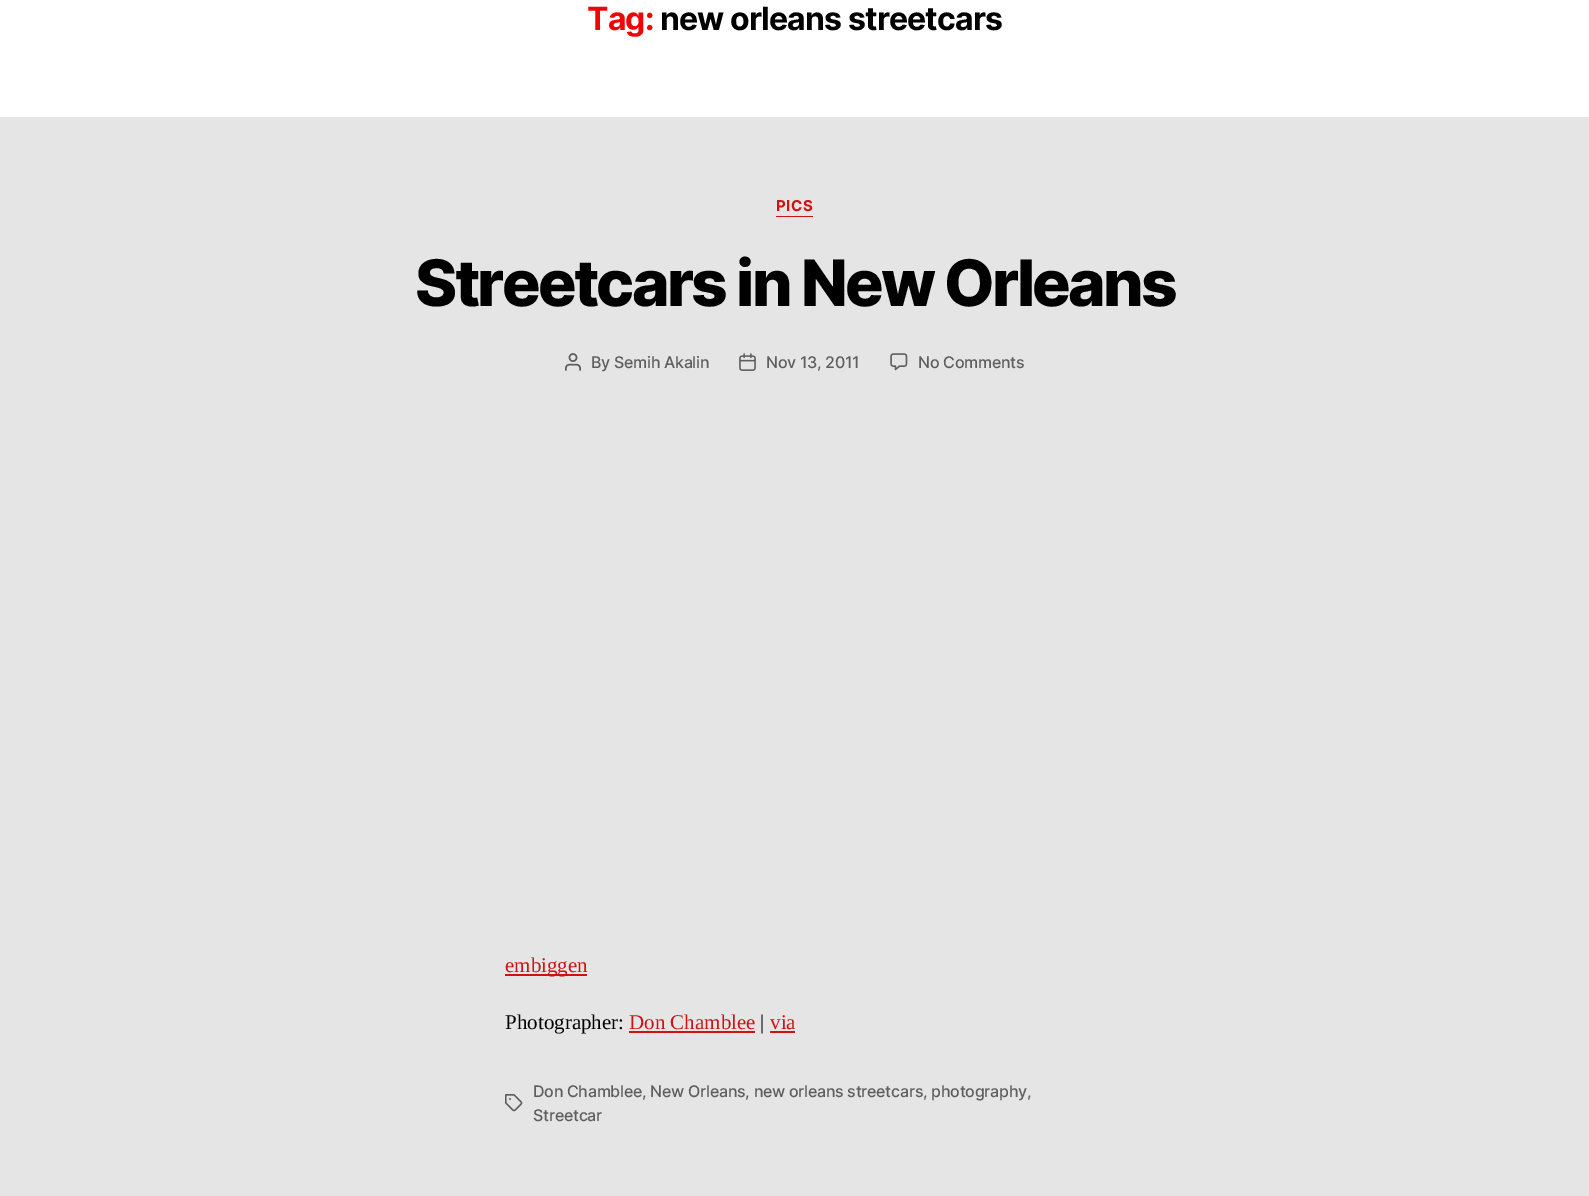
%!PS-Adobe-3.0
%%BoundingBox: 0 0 1589 1196
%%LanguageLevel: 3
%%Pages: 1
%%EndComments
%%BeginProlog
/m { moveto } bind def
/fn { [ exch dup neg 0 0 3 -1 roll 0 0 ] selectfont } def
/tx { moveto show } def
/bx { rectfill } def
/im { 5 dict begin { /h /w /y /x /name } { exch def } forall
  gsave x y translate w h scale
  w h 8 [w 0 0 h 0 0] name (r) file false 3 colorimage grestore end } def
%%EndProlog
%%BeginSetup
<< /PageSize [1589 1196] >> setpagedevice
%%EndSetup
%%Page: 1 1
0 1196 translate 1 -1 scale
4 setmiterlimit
0.898 setgray
0 0 1589 1196 bx
1 setgray
0 0 1589 117 bx
/Inter-Bold 32 fn
0.933 0.024 0.024 setrgbcolor
587 30 m -0.85 0 (Tag:) ashow
0 setgray
660 30 m -0.85 0 (new orleans streetcars) ashow
0.804 0.075 0.075 setrgbcolor
776 216 37 1 bx
/Inter-Bold 15 fn
776 211 m 0.5 0 (PICS) ashow
/Inter-ExtraBold 64 fn
0 setgray
415 306 m -2.65 0 (Streetcars in New Orleans) ashow
(image0.raw) 565 353 16 18 im
/Inter-Medium 16 fn
0.369 setgray
591 368 m -0.27 0 (By Semih Akalin) ashow
(image1.raw) 739 353 17 18 im
766 368 m -0.27 0 (Nov 13, 2011) ashow
(image2.raw) 890 353 18 18 im
918 368 m -0.27 0 (No Comments) ashow
0.804 0.075 0.075 setrgbcolor
505 974 82 2 bx
/LiberationSerif-Regular 21 fn
(embiggen) 505 972 tx
0 setgray
(Photographer:) 505 1029 tx
0.804 0.075 0.075 setrgbcolor
(Don Chamblee) 629 1029 tx
629 1031 126 2 bx
0 setgray
(|) 760 1029 tx
0.804 0.075 0.075 setrgbcolor
(via) 770 1029 tx
770 1031 25 2 bx
(image3.raw) 505 1094 18 18 im
/Inter-Medium 16 fn
0.369 setgray
533 1097 m -0.27 0 (Don Chamblee, New Orleans, new orleans streetcars, photography,) ashow
533 1121 m -0.27 0 (Streetcar) ashow
showpage
%%EOF
